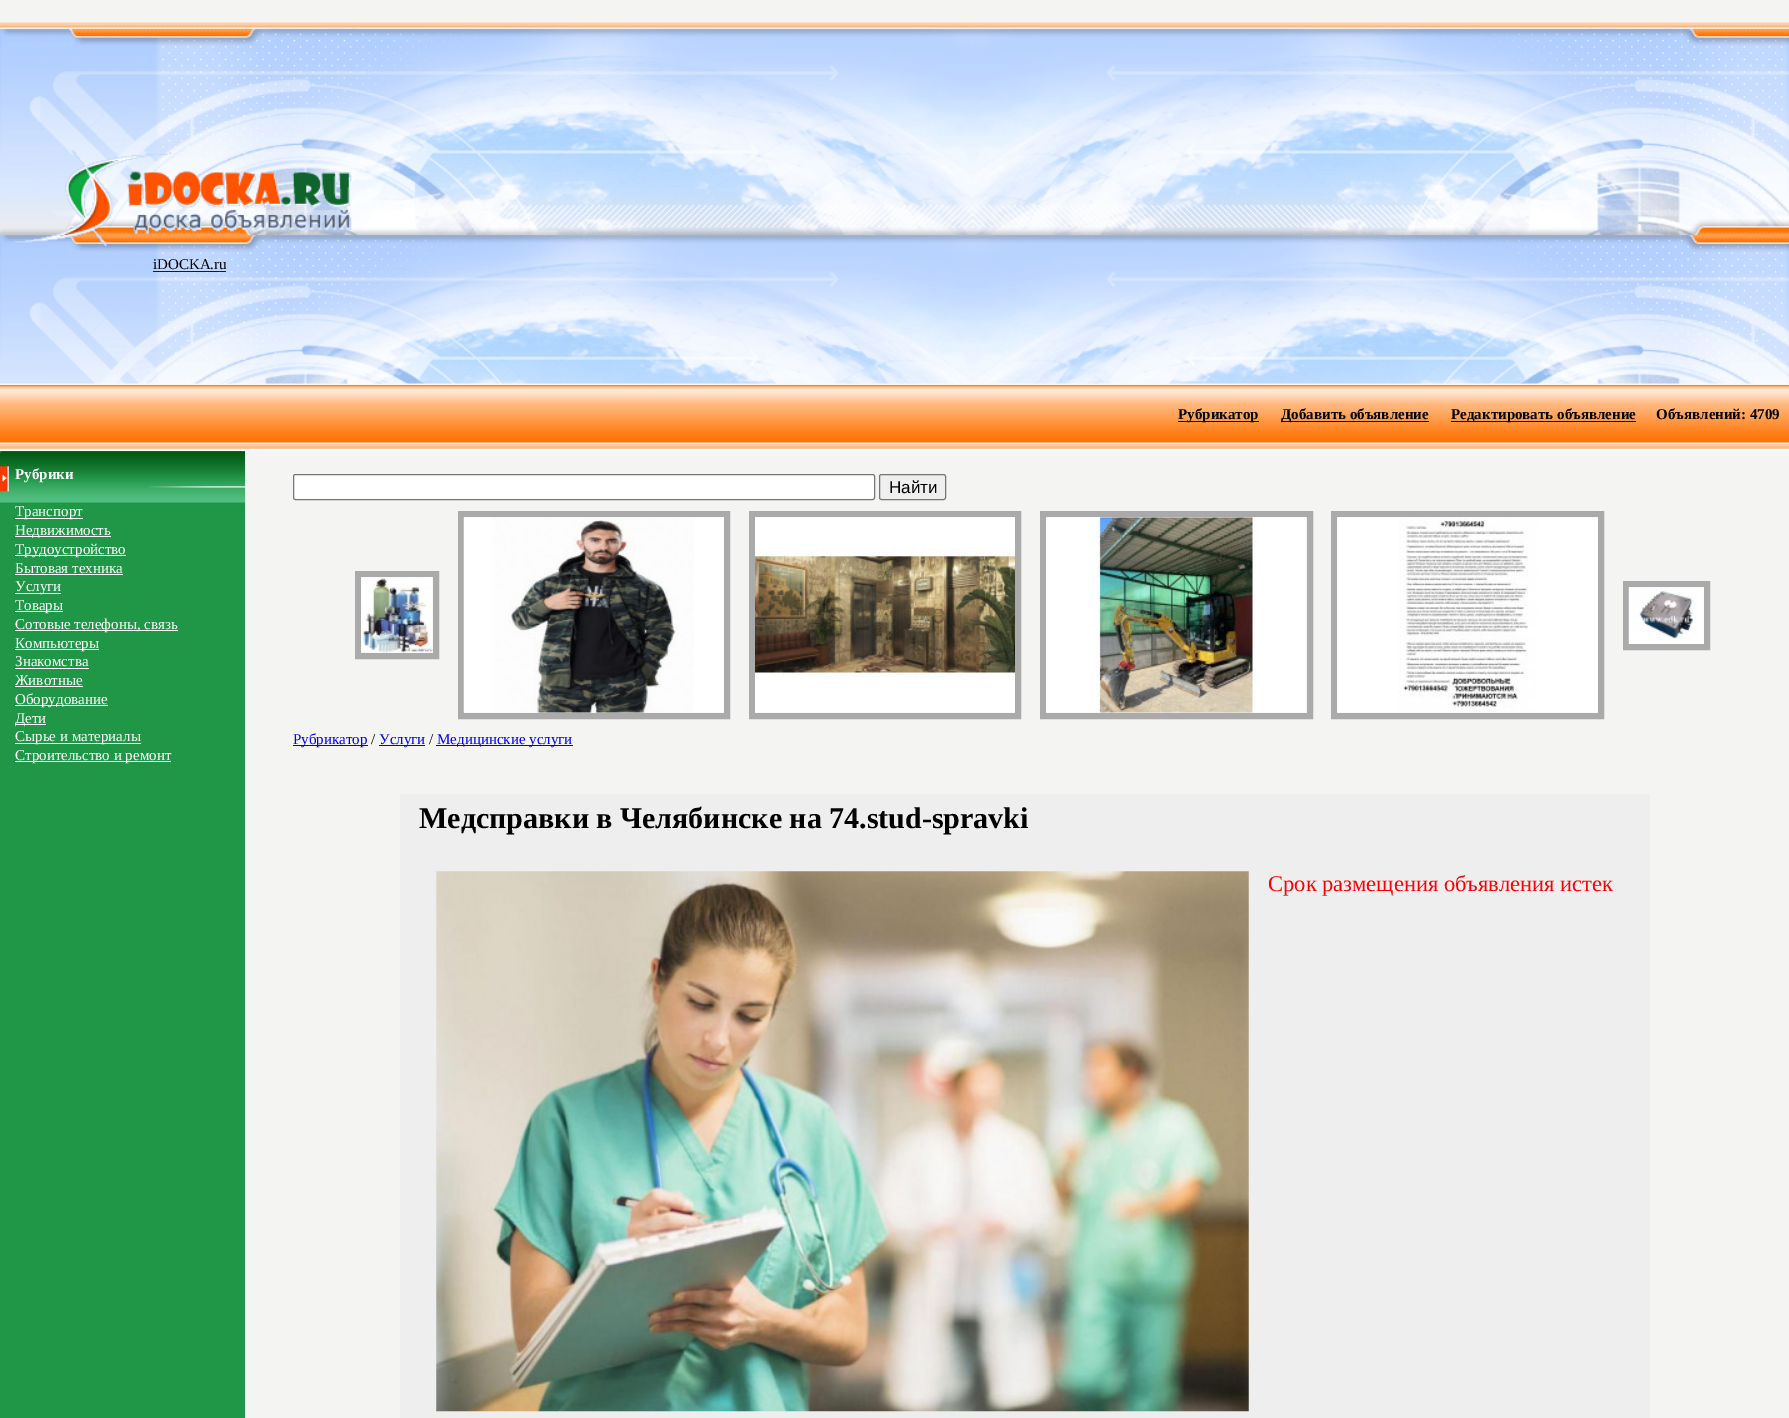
%!PS-Adobe-3.0
%%BoundingBox: 0 0 1789 1418
%%LanguageLevel: 3
%%Pages: 1
%%EndComments
%%BeginProlog
/f { fill } bind def
/S { stroke } bind def
/q { gsave } bind def
/Q { grestore } bind def
/w { setlinewidth } bind def
/fn { [ exch dup neg 0 0 3 -1 roll 0 0 ] selectfont } def
/tx { moveto show } def
/bx { rectfill } def
/rr { 5 dict begin { /r /h /w /y /x } { exch def } forall
  x r add y moveto x w add y 2 copy h add r arct x w add y h add x 1 index r arct
  x y h add x y r arct x y 2 copy exch w add exch r arct closepath end } def
/im { 5 dict begin { /h /w /y /x /name } { exch def } forall
  gsave x y translate w h scale
  w h 8 [w 0 0 h 0 0] name (r) file false 3 colorimage grestore end } def
%%EndProlog
%%BeginSetup
<< /PageSize [1789 1418] >> setpagedevice
%%EndSetup
%%Page: 1 1
0 1418 translate 1 -1 scale
4 setmiterlimit
0.957 0.957 0.949 setrgbcolor
0 0 1789 1418 bx
(image0.raw) 0 22 1789 7 im
(image1.raw) 0 28 1789 356 im
(image2.raw) 15 150 337 97 im
/LiberationSerif-Regular 15 fn
0 setgray
(iDOCKA.ru) 153 269 tx
0 0 0.933 setrgbcolor
153 271 73 1 bx
(image3.raw) 0 383 1789 68 im
0 setgray
1178 421 81 1 bx
/LiberationSerif-Bold 15 fn
(Рубрикатор) 1178 419 tx
1281 421 148 1 bx
(Добавить объявление) 1281 419 tx
1451 421 185 1 bx
(Редактировать объявление) 1451 419 tx
(Объявлений: 4709) 1656 419 tx
0.125 0.588 0.278 setrgbcolor
0 451 245 967 bx
(image4.raw) 0 451 245 52 im
1 setgray
(Рубрики) 15 479 tx
15 518 68 1 bx
/LiberationSerif-Regular 15 fn
(Транспорт) 15 516 tx
15 536 96 1 bx
(Недвижимость) 15 535 tx
15 555 111 1 bx
(Трудоустройство) 15 554 tx
(Бытовая техника) 15 573 tx
15 574 108 1 bx
15 593 46 1 bx
(Услуги) 15 591 tx
15 611 48 1 bx
(Товары) 15 610 tx
15 630 163 1 bx
(Сотовые телефоны, связь) 15 629 tx
15 649 84 1 bx
(Компьютеры) 15 648 tx
(Знакомства) 15 666 tx
15 668 74 1 bx
(Животные) 15 685 tx
15 686 68 1 bx
15 705 93 1 bx
(Оборудование) 15 704 tx
15 724 31 1 bx
(Дети) 15 723 tx
15 743 126 1 bx
(Сырье и материалы) 15 741 tx
15 761 156 1 bx
(Строительство и ремонт) 15 760 tx
293.5 474.5 581 25 2 rr q f Q
0.463 setgray
S
0.937 setgray
879.5 474.5 66 25 2 rr q f Q
0.463 setgray
S
/LiberationSans-Regular 17 fn
0 setgray
(Найти) 889 493 tx
0.667 setgray
6 w
358 574 78 82 rectstroke
(image5.raw) 361 577 72 76 im
461 514 266 202 rectstroke
(image6.raw) 463 517 261 196 im
752 514 266 202 rectstroke
(image7.raw) 755 517 260 196 im
1043 514 267 202 rectstroke
(image8.raw) 1046 517 260 196 im
1334 514 267 202 rectstroke
(image9.raw) 1337 517 261 196 im
1626 584 81 63 rectstroke
(image10.raw) 1628 587 76 57 im
0 0 0.933 setrgbcolor
293 745 75 1 bx
/LiberationSerif-Regular 15 fn
(Рубрикатор) 293 744 tx
0 setgray
(/) 371 744 tx
0 0 0.933 setrgbcolor
379 745 46 1 bx
(Услуги) 379 744 tx
0 setgray
(/) 429 744 tx
0 0 0.933 setrgbcolor
436 745 137 1 bx
(Медицинские услуги) 437 744 tx
0.933 setgray
400 794 1250 624 bx
/LiberationSerif-Bold 30 fn
0 setgray
(Медсправки в Челябинске на 74.stud-spravki) 419 828 tx
(image11.raw) 436 871 813 541 im
/LiberationSerif-Regular 22.5 fn
1 0 0 setrgbcolor
(Срок размещения объявления истек) 1268 891 tx
showpage
%%EOF
